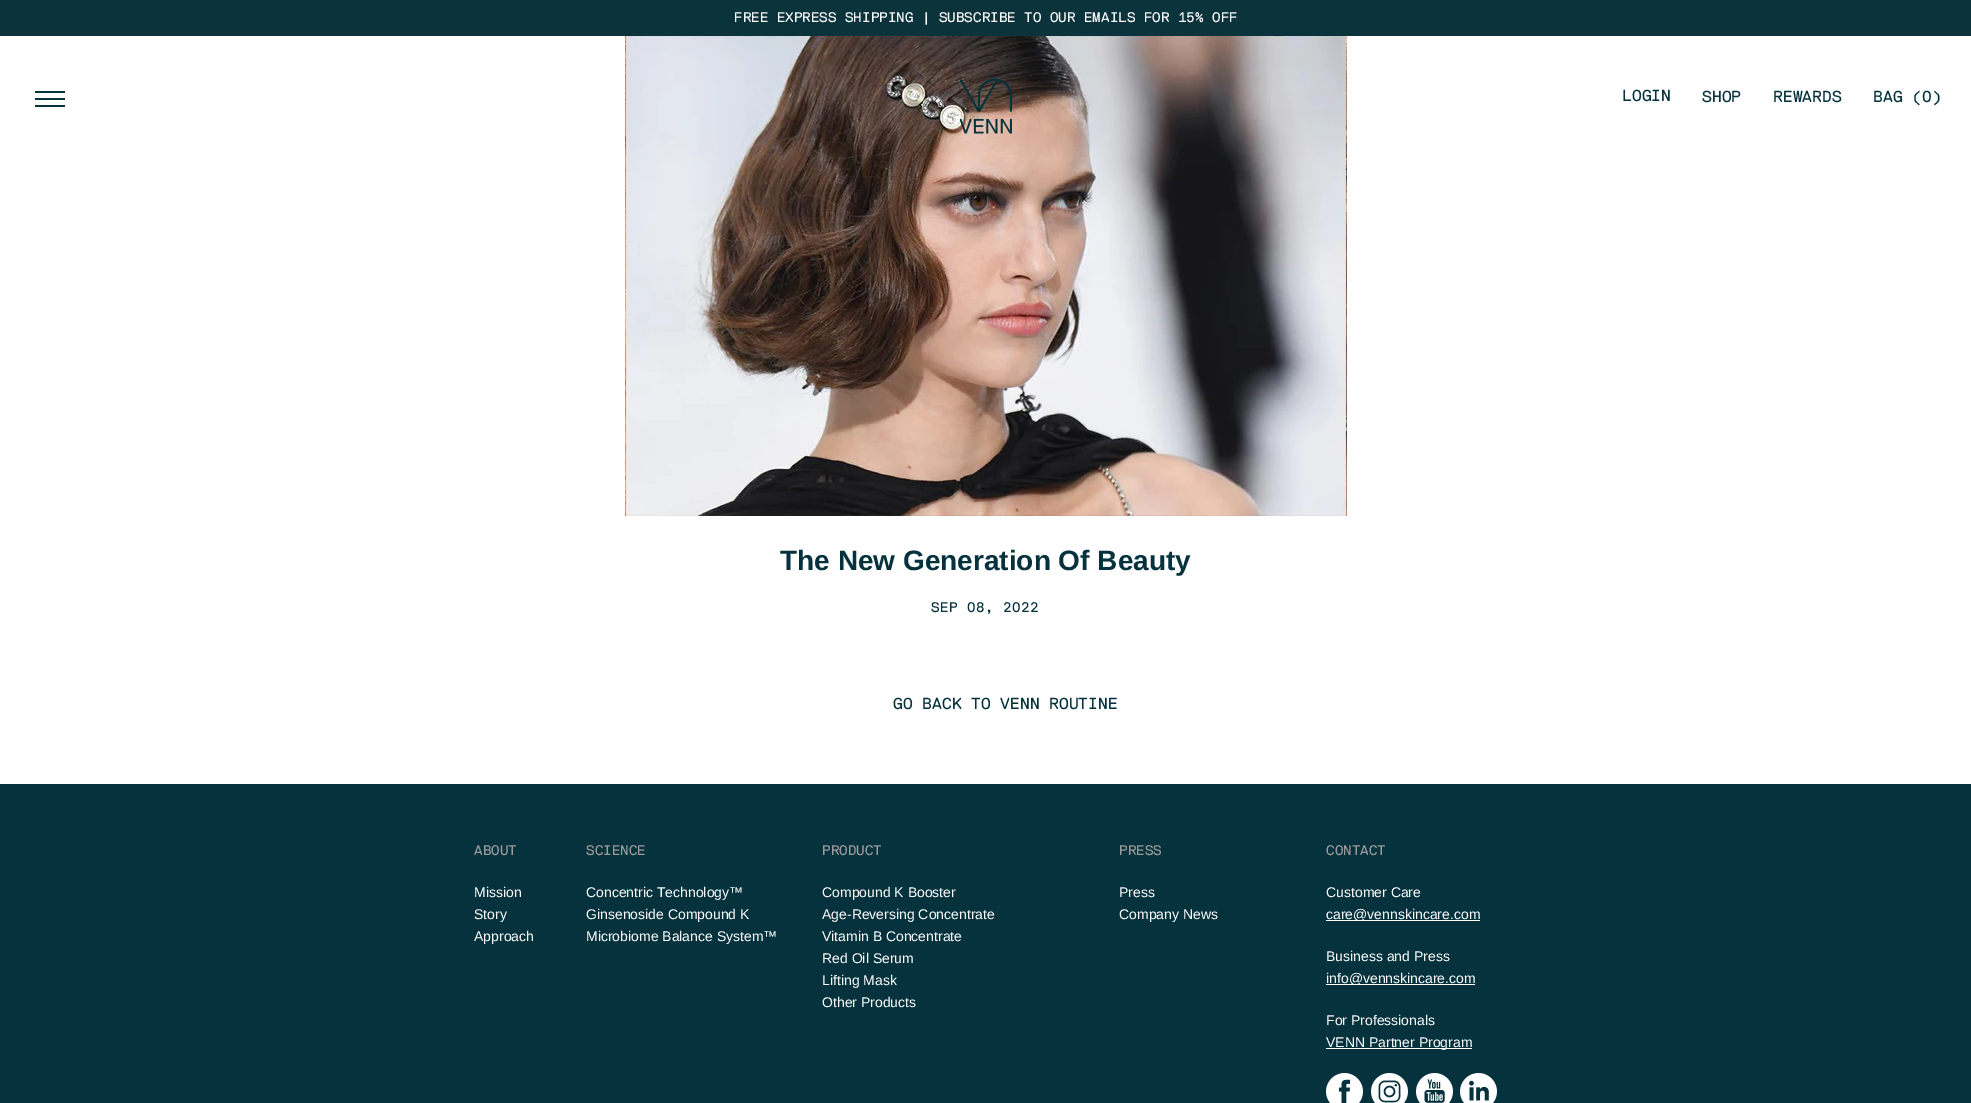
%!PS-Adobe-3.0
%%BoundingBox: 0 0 1971 1103
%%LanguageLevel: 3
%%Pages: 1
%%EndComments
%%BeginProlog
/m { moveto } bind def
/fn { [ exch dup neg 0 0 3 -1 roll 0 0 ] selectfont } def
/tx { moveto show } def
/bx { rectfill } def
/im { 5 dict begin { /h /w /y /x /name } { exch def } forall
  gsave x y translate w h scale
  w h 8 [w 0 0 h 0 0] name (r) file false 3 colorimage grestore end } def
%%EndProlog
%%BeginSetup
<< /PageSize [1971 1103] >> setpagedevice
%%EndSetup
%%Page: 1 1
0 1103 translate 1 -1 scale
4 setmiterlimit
1 setgray
0 0 1971 1103 bx
0.039 0.2 0.235 setrgbcolor
0 0 1971 36 bx
/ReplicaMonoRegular-Regular 14 fn
1 setgray
(FREE EXPRESS SHIPPING | SUBSCRIBE TO OUR EMAILS FOR 15% OFF) 734 22 tx
0.02 0.196 0.235 setrgbcolor
35 91 30 2 bx
35 98 30 2 bx
35 105 30 2 bx
(image1.raw) 625 36 722 480 im
(image0.raw) 959 78 53 56 im
/ReplicaMonoRegular-Regular 16 fn
(LOGIN) 1622 101 tx
(SHOP) 1702 102 tx
(REWARDS) 1773 102 tx
(BAG \(0\)) 1873 102 tx
/LiberationSans-Bold 28 fn
(The New Generation Of Beauty) 780 570 tx
/ReplicaMonoRegular-Regular 14 fn
931 612 m 0.5 0 (SEP 08, 2022) ashow
/ReplicaMonoRegular-Regular 16 fn
(GO BACK TO VENN ROUTINE) 893 709 tx
0 784 1971 319 bx
/ReplicaMonoRegular-Regular 14 fn
0.608 setgray
(ABOUT) 474 855 tx
/LiberationSans-Regular 14 fn
1 setgray
(Mission) 474 897 tx
(Story) 474 919 tx
(Approach) 474 941 tx
/ReplicaMonoRegular-Regular 14 fn
0.608 setgray
(SCIENCE) 586 855 tx
/LiberationSans-Regular 14 fn
1 setgray
(Concentric Technology™) 586 897 tx
(Ginsenoside Compound K) 586 919 tx
(Microbiome Balance System™) 586 941 tx
/ReplicaMonoRegular-Regular 14 fn
0.608 setgray
(PRODUCT) 822 855 tx
/LiberationSans-Regular 14 fn
1 setgray
(Compound K Booster) 822 897 tx
(Age-Reversing Concentrate) 822 919 tx
(Vitamin B Concentrate) 822 941 tx
(Red Oil Serum) 822 963 tx
(Lifting Mask) 822 985 tx
(Other Products) 822 1007 tx
/ReplicaMonoRegular-Regular 14 fn
0.608 setgray
(PRESS) 1119 855 tx
/LiberationSans-Regular 14 fn
1 setgray
(Press) 1119 897 tx
(Company News) 1119 919 tx
/ReplicaMonoRegular-Regular 14 fn
0.608 setgray
(CONTACT) 1326 855 tx
/LiberationSans-Regular 14 fn
1 setgray
(Customer Care) 1326 897 tx
1326 920 154 1 bx
(care@vennskincare.com) 1326 919 tx
(Business and Press) 1326 961 tx
1326 984 149 1 bx
(info@vennskincare.com) 1326 983 tx
(For Professionals) 1326 1025 tx
1326 1048 146 1 bx
(VENN Partner Program) 1326 1047 tx
(image2.raw) 1326 1073 37 30 im
(image3.raw) 1371 1073 37 30 im
(image4.raw) 1416 1073 37 30 im
(image5.raw) 1460 1073 37 30 im
showpage
%%EOF
